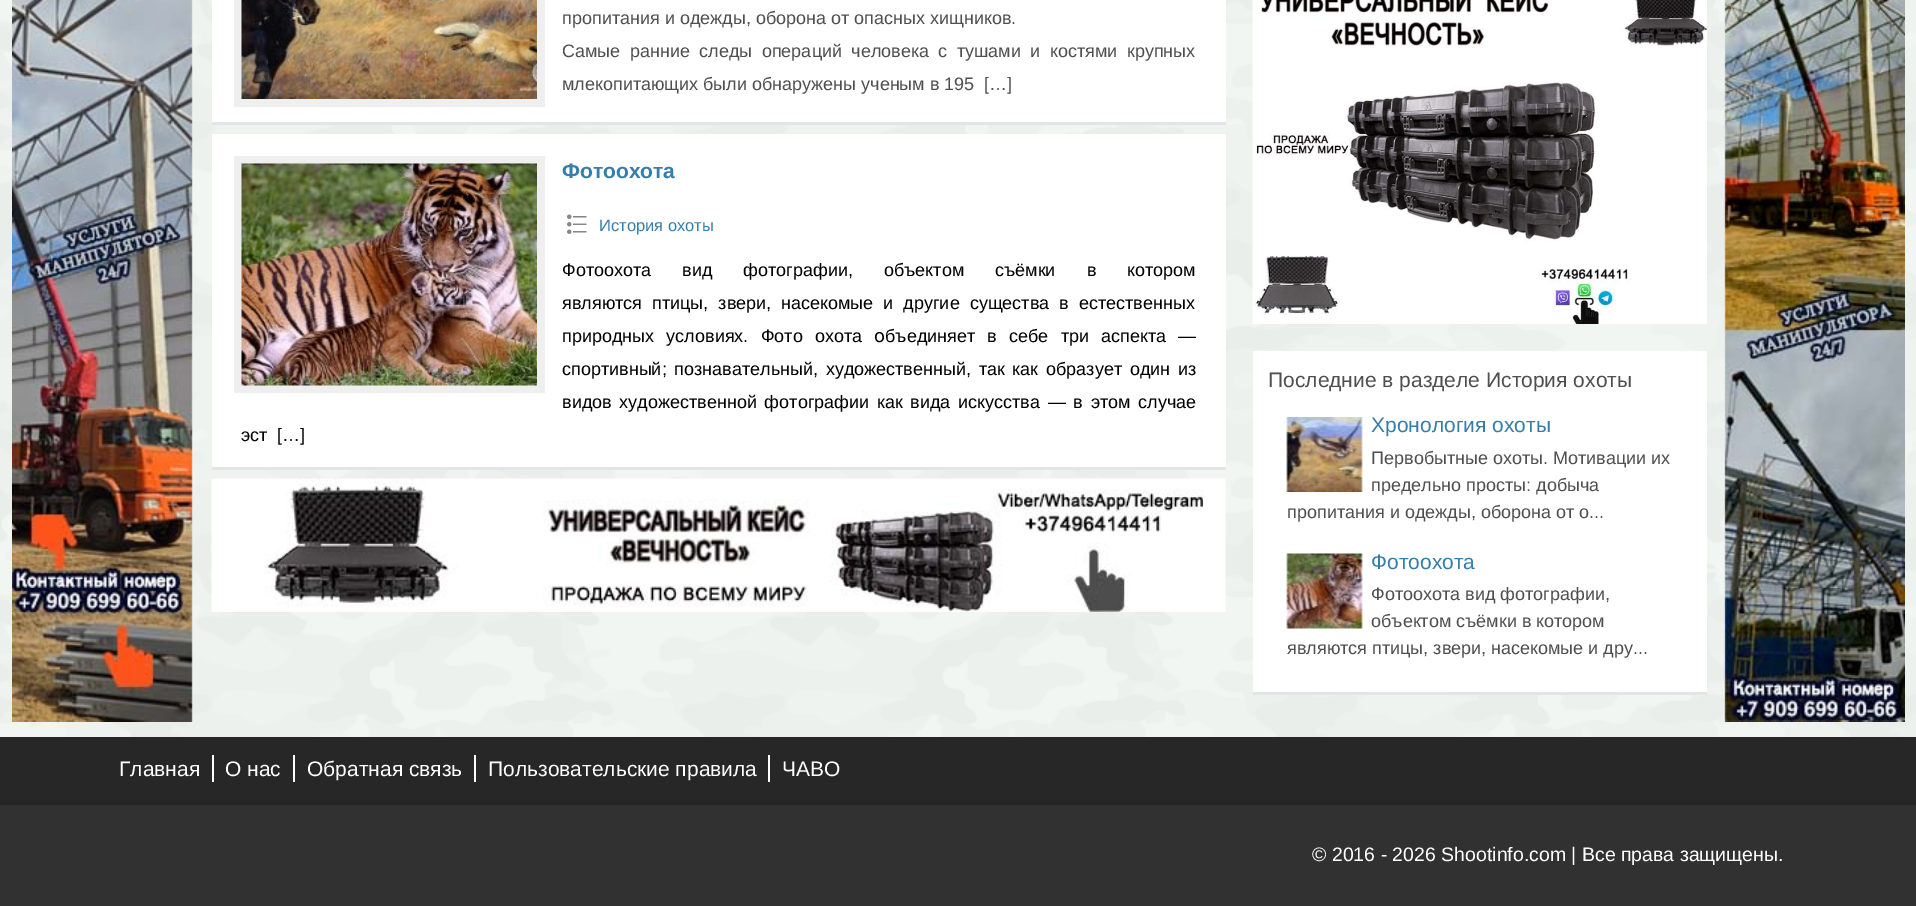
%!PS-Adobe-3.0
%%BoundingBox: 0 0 1916 906
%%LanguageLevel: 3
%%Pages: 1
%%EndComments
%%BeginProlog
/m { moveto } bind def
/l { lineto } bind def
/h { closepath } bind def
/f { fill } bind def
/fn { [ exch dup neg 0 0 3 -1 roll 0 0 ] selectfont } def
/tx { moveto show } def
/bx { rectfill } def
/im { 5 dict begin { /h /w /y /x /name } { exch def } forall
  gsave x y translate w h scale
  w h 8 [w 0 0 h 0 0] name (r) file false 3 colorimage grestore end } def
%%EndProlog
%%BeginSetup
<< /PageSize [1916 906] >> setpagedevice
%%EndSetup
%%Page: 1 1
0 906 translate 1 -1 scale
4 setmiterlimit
0.953 0.973 0.957 setrgbcolor
0 0 1916 906 bx
(image0.raw) 0 0 1916 737 im
(image1.raw) 12 0 181 722 im
(image2.raw) 1724 0 181 722 im
0.89 0.894 0.906 setrgbcolor
212 122 m 212 125 l 1226 125 l 1226 -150 l 1226 122 l h f
1 setgray
212 0 1014 122 bx
0.937 setgray
234 0 311 107 bx
(image3.raw) 241 0 296 99 im
/LiberationSans-Regular 18 fn
0.31 setgray
(пропитания и одежды, оборона от опасных хищников.) 562 24 tx
562 57 m 4.5 0 32 (Самые ранние следы операций человека с тушами и костями крупных) widthshow
(млекопитающих были обнаружены ученым в 195) 562 90 tx
([…]) 984 90 tx
0.89 0.894 0.906 setrgbcolor
212 466 m 212 470 l 1226 470 l 1226 137 l 1226 466 l h f
1 setgray
212 134 1014 333 bx
0.937 setgray
234 156 311 237 bx
(image4.raw) 241 163 296 223 im
/LiberationSans-Bold 21 fn
0.204 0.494 0.663 setrgbcolor
(Фотоохота) 562 178 tx
(image5.raw) 567 214 20 20 im
/LiberationSans-Regular 16.5 fn
(История охоты) 599 231 tx
/LiberationSans-Regular 18 fn
0 setgray
562 276 m 26 0 32 (Фотоохота вид фотографии, объектом съёмки в котором) widthshow
562 309 m 5 0 32 (являются птицы, звери, насекомые и другие существа в естественных) widthshow
562 342 m 7.25 0 32 (природных условиях. Фото охота) widthshow
/DejaVuSans-Regular 18 fn
(օ) 874 342 tx
/LiberationSans-Regular 18 fn
885 342 m 7.25 0 32 (бъединяет в себе три аспекта —) widthshow
562 375 m 2.75 0 32 (спортивный; познавательный, художественный, так как образует один из) widthshow
562 408 m 2.75 0 32 (видов художественной фотографии как вида искусства — в этом случае) widthshow
(эст) 241 441 tx
([…]) 277 441 tx
(image6.raw) 211 478 1015 134 im
(image7.raw) 1252 0 455 324 im
0.89 0.894 0.906 setrgbcolor
1253 692 454 3 bx
1 setgray
1253 351 454 341 bx
/LiberationSans-Regular 21 fn
0.31 setgray
(Последние в разделе История охоты) 1268 387 tx
(image8.raw) 1286 417 77 75 im
0.204 0.494 0.663 setrgbcolor
(Хронология охоты) 1371 432 tx
/LiberationSans-Regular 18 fn
0.31 setgray
(Первобытные охоты. Мотивации их) 1371 464 tx
(предельно просты: добыча) 1371 491 tx
(пропитания и одежды, оборона от о...) 1287 518 tx
(image9.raw) 1286 553 77 76 im
/LiberationSans-Regular 21 fn
0.204 0.494 0.663 setrgbcolor
(Фотоохота) 1371 569 tx
/LiberationSans-Regular 18 fn
0.31 setgray
(Фотоохота вид фотографии,) 1371 600 tx
(объектом съёмки в котором) 1371 627 tx
(являются птицы, звери, насекомые и дру...) 1287 654 tx
0.192 setgray
0 805 1916 101 bx
0.153 setgray
0 737 1916 63 bx
/LiberationSans-Regular 21 fn
1 setgray
(Главная) 119 776 tx
212 755 2 27 bx
(О нас) 225 776 tx
293 755 2 27 bx
(Обратная связь) 307 776 tx
474 755 2 27 bx
(Пользовательские правила) 488 776 tx
768 755 2 27 bx
(ЧАВО) 782 776 tx
0.145 setgray
0 800 1916 5 bx
/LiberationSans-Regular 19.5 fn
1 setgray
(© 2016 - 2026 Shootinfo.com | Все права защищены.) 1312 861 tx
showpage
%%EOF
